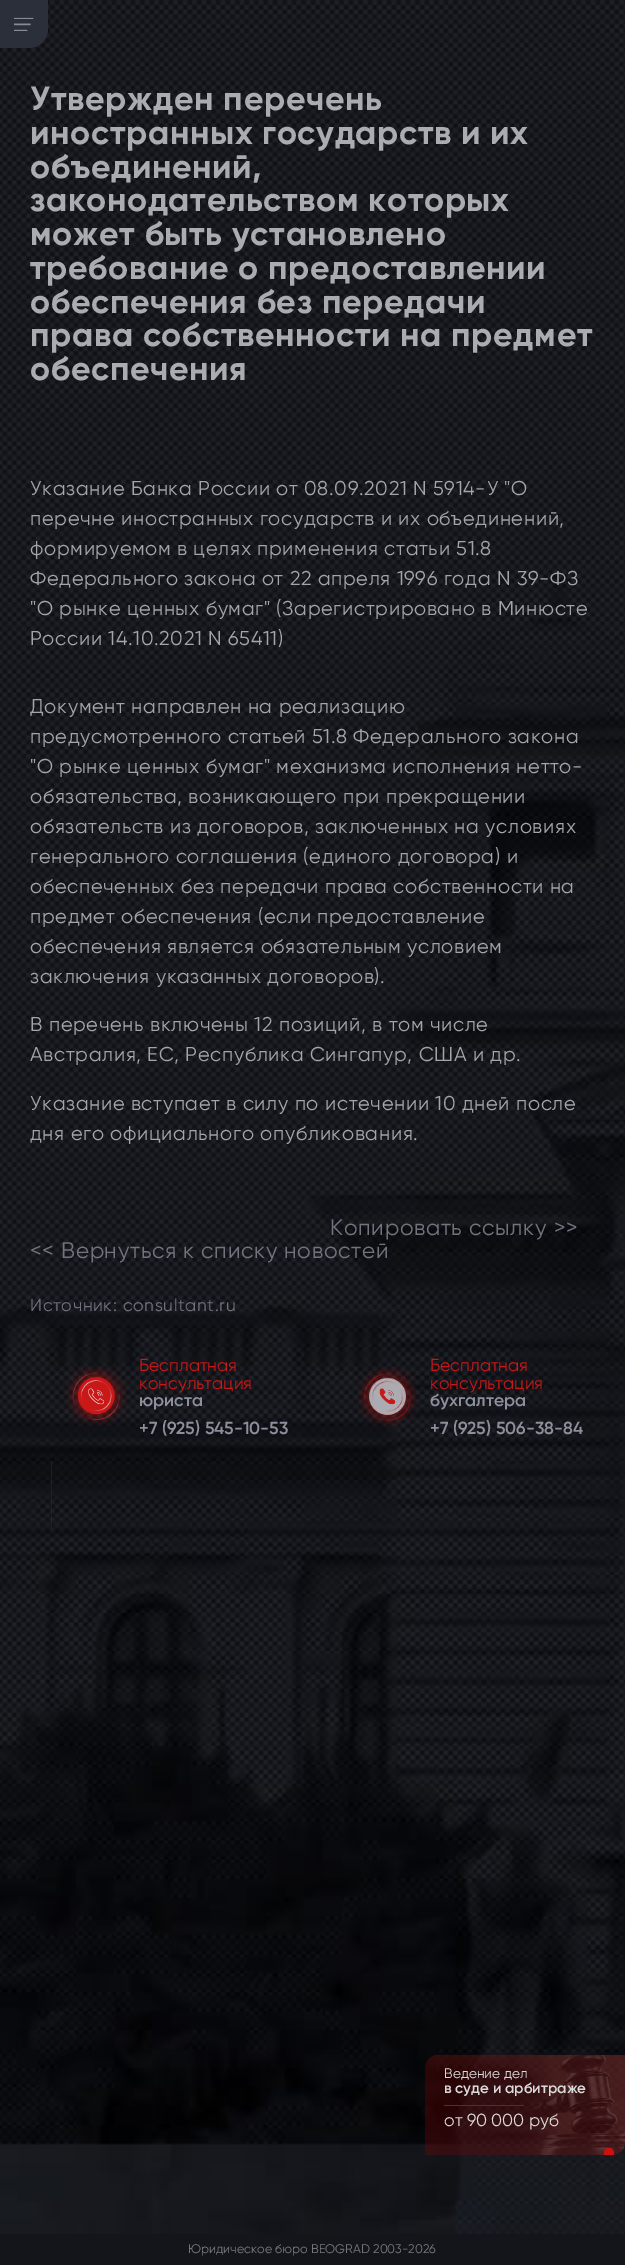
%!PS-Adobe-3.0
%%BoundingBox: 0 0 625 2265
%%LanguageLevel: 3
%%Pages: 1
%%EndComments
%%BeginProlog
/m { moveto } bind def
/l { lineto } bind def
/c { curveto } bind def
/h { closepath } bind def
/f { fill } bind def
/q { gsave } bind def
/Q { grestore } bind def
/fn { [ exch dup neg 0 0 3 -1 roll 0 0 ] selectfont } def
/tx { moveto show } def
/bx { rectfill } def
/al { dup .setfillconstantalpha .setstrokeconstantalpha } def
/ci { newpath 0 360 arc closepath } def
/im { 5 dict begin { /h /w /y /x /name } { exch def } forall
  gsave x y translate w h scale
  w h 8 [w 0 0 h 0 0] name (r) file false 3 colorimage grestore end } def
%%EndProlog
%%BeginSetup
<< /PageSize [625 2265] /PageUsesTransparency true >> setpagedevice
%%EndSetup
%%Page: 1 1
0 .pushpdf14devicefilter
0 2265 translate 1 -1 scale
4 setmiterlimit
1 setgray
0 0 625 2265 bx
(image0.raw) 0 0 625 2234 im
0.165 0.184 0.224 setrgbcolor
0 0 m 48 0 l 48 29 l 48 39.5 39.5 48 29 48 c 0 48 l h f
(image1.raw) 14 17 20 14 im
/Gilroy-Bold 33.75 fn
0.667 0.675 0.698 setrgbcolor
30 110 m 0.68 0 (Утвержден перечень) ashow
30 144 m 0.68 0 (иностранных государств и их) ashow
30 178 m 0.68 0 (объединений,) ashow
30 211 m 0.68 0 (законодательством которых) ashow
30 245 m 0.68 0 (может быть установлено) ashow
30 279 m 0.68 0 (требование о предоставлении) ashow
30 313 m 0.68 0 (обеспечения без передачи) ashow
30 346 m 0.68 0 (права собственности на предмет) ashow
30 380 m 0.68 0 (обеспечения) ashow
/Gilroy-Regular 20 fn
0.639 0.647 0.671 setrgbcolor
30 495 m 0.68 0 (Указание Банка России от 08.09.2021 N 5914-У "О) ashow
30 525 m 0.68 0 (перечне иностранных государств и их объединений,) ashow
30 555 m 0.68 0 (формируемом в целях применения статьи 51.8) ashow
30 585 m 0.68 0 (Федерального закона от 22 апреля 1996 года N 39-ФЗ) ashow
30 615 m 0.68 0 ("О рынке ценных бумаг" \(Зарегистрировано в Минюсте) ashow
30 645 m 0.68 0 (России 14.10.2021 N 65411\)) ashow
30 713 m 0.68 0 (Документ направлен на реализацию) ashow
30 743 m 0.68 0 (предусмотренного статьей 51.8 Федерального закона) ashow
30 773 m 0.68 0 ("О рынке ценных бумаг" механизма исполнения нетто-) ashow
30 803 m 0.68 0 (обязательства, возникающего при прекращении) ashow
30 833 m 0.68 0 (обязательств из договоров, заключенных на условиях) ashow
30 863 m 0.68 0 (генерального соглашения \(единого договора\) и) ashow
30 893 m 0.68 0 (обеспеченных без передачи права собственности на) ashow
30 923 m 0.68 0 (предмет обеспечения \(если предоставление) ashow
30 953 m 0.68 0 (обеспечения является обязательным условием) ashow
30 983 m 0.68 0 (заключения указанных договоров\).) ashow
30 1031 m 0.68 0 (В перечень включены 12 позиций, в том числе) ashow
30 1061 m 0.68 0 (Австралия, ЕС, Республика Сингапур, США и др.) ashow
30 1110 m 0.68 0 (Указание вступает в силу по истечении 10 дней после) ashow
30 1140 m 0.68 0 (дня его официального опубликования.) ashow
/Gilroy-Regular 22.5 fn
0.439 0.455 0.494 setrgbcolor
330 1235 m 0.68 0 (Копировать ссылку >>) ashow
30 1258 m 0.68 0 (<< Вернуться к списку новостей) ashow
/Gilroy-Regular 17.5 fn
30 1311 m 0.68 0 (Источник: consultant.ru) ashow
(image2.raw) 66 1365 61 61 im
(image3.raw) 88 1388 17 17 im
0.784 0.094 0.094 setrgbcolor
(Бесплатная) 139 1371 tx
(консультация) 139 1389 tx
/Gilroy-SemiBold 17.5 fn
0.545 0.565 0.612 setrgbcolor
(юриста) 139 1406 tx
(+7 \(925\) 545-10-53) 139 1434 tx
(image4.raw) 357 1366 61 61 im
(image5.raw) 379 1388 17 17 im
/Gilroy-Regular 17.5 fn
0.784 0.094 0.094 setrgbcolor
(Бесплатная) 430 1371 tx
(консультация) 430 1389 tx
/Gilroy-SemiBold 17.5 fn
0.545 0.565 0.612 setrgbcolor
(бухгалтера) 430 1406 tx
(+7 \(925\) 506-38-84) 430 1434 tx
0.6 al
0.141 0.157 0.188 setrgbcolor
51 1461 1 70 bx
1 al
(image6.raw) 426 2055 199 100 im
0.3 al
0.49 0.016 0.016 setrgbcolor
438 2055 m 625 2055 l 625 2142 l 625 2149 619 2155 612 2155 c 425 2155 l 425 2068 l 425 2061 431 2055 438 2055 c h f
/Gilroy-Regular 13.75 fn
1 al
0.855 setgray
(Ведение дел) 444 2078 tx
/Gilroy-SemiBold 15 fn
(в суде и арбитраже) 444 2093 tx
0.627 0.051 0.051 setrgbcolor
444 2105 80 1 bx
/Gilroy-Regular 17.5 fn
0.855 setgray
(от 90 000 руб) 444 2126 tx
q
425 2055 200 100 rectclip
0.827 0.055 0.055 setrgbcolor
609 2153 5 ci f
Q
0.078 0.082 0.098 setrgbcolor
629 2148 m 625 2148 l 625 2158 l 629 2158 l 626 2158 624 2156 624 2153 c 624 2150 626 2148 629 2148 c h f
0.075 0.082 0.102 setrgbcolor
0 2234 625 31 bx
/Gilroy-Regular 12.5 fn
0.463 0.471 0.49 setrgbcolor
(Юридическое бюро BEOGRAD 2003-2026) 188 2253 tx
.poppdf14devicefilter showpage
%%EOF
